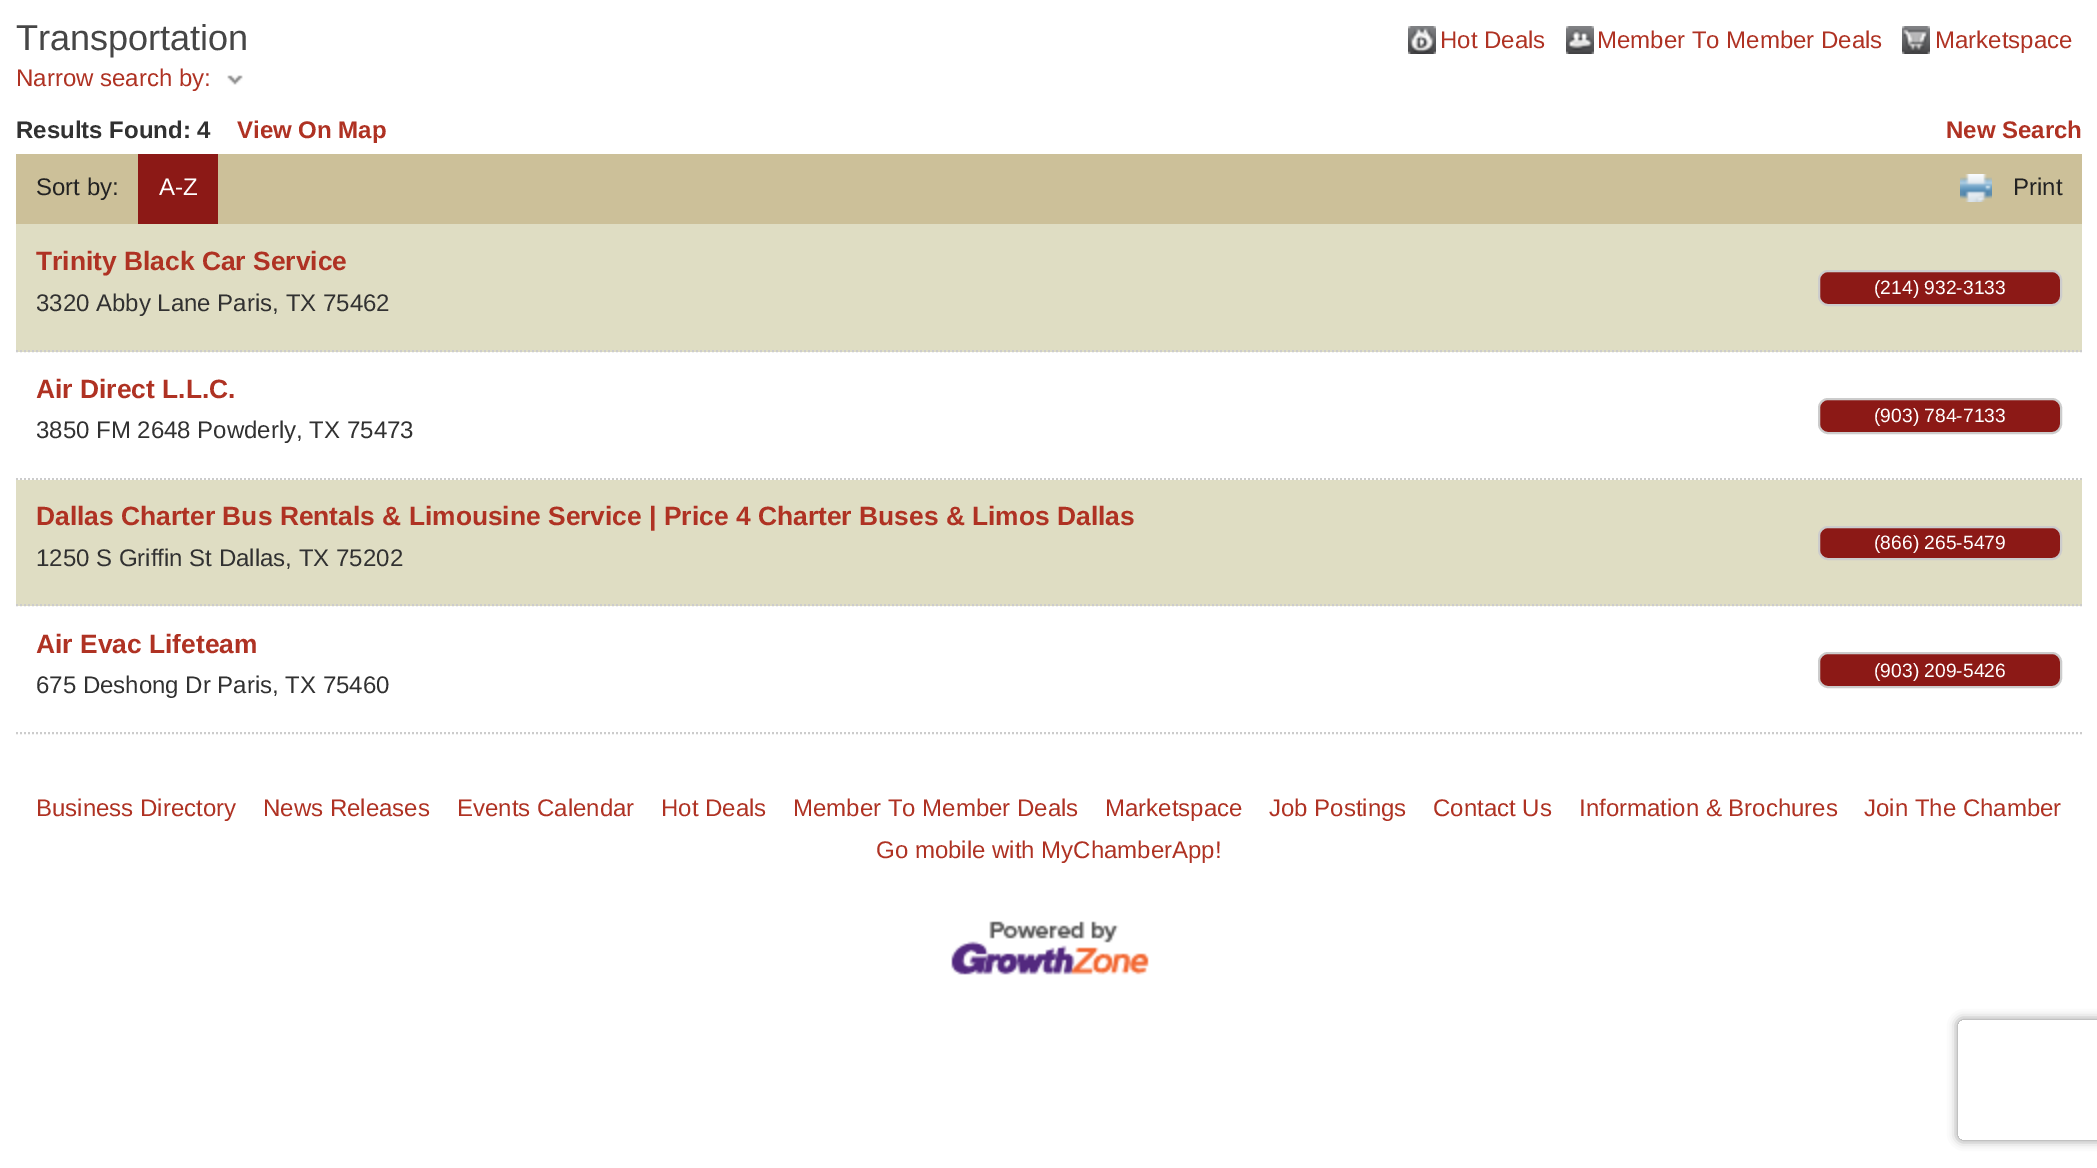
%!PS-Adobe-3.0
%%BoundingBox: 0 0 2097 1168
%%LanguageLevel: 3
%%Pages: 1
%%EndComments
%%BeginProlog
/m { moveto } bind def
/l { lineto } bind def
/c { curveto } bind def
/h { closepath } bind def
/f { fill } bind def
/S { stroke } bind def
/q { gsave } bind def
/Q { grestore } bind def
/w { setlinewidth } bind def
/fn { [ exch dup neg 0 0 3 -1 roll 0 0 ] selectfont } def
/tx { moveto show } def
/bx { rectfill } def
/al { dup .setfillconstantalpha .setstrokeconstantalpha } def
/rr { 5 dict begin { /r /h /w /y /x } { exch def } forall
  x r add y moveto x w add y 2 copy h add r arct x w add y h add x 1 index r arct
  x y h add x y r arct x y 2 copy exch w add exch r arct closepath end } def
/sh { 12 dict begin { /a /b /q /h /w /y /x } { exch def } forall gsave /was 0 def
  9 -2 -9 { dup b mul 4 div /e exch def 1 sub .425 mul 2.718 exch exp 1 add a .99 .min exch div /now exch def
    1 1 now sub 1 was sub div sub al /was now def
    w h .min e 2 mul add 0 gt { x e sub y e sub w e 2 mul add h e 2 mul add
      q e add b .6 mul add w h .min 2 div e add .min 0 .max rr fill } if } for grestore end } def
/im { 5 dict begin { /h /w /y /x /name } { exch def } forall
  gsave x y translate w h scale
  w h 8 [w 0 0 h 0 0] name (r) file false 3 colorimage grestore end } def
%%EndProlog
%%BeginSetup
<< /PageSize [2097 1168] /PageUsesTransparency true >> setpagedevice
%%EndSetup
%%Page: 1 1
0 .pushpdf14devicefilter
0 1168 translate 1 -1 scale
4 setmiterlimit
1 setgray
0 0 2097 1168 bx
/LiberationSans-Regular 36 fn
0.275 setgray
(Transportation) 16 50 tx
(image0.raw) 1408 26 28 28 im
/LiberationSans-Regular 24 fn
0.686 0.196 0.137 setrgbcolor
(Hot Deals) 1440 48 tx
(image1.raw) 1566 26 28 28 im
(Member To Member Deals) 1597 48 tx
(image2.raw) 1902 26 28 28 im
(Marketspace) 1935 48 tx
(Narrow search by:) 16 86 tx
(image3.raw) 227 75 16 10 im
/LiberationSans-Bold 24 fn
0.192 setgray
(Results Found: 4) 16 138 tx
0.686 0.196 0.137 setrgbcolor
(View On Map) 237 138 tx
(New Search) 1946 138 tx
0.8 0.753 0.6 setrgbcolor
16 154 2066 70 bx
/LiberationSans-Regular 24 fn
0.133 setgray
(Sort by:) 36 195 tx
0.549 0.098 0.086 setrgbcolor
138 154 80 70 bx
1 setgray
(A-Z) 159 195 tx
(image4.raw) 1960 174 32 28 im
0.133 setgray
(Print) 2013 195 tx
0.875 0.867 0.765 setrgbcolor
16 224 2066 128 bx
0.8 setgray
2 w
[2 2] 0 setdash
16 351 m 2082 351 l S
/LiberationSans-Bold 26.4 fn
0.686 0.196 0.137 setrgbcolor
(Trinity Black Car Service) 36 270 tx
/LiberationSans-Regular 24 fn
0.192 setgray
(3320 Abby Lane Paris, TX 75462) 36 311 tx
0.549 0.098 0.086 setrgbcolor
1819 271 242 34 9 rr q f Q
0.8 setgray
[] 0 setdash
S
/LiberationSans-Regular 19.25 fn
1 setgray
(\(214\) 932-3133) 1874 294 tx
0.8 setgray
[2 2] 0 setdash
16 479 m 2082 479 l S
/LiberationSans-Bold 26.4 fn
0.686 0.196 0.137 setrgbcolor
(Air Direct L.L.C.) 36 398 tx
/LiberationSans-Regular 24 fn
0.192 setgray
(3850 FM 2648 Powderly, TX 75473) 36 438 tx
0.549 0.098 0.086 setrgbcolor
1819 399 242 34 9 rr q f Q
0.8 setgray
[] 0 setdash
S
/LiberationSans-Regular 19.25 fn
1 setgray
(\(903\) 784-7133) 1874 422 tx
0.875 0.867 0.765 setrgbcolor
16 480 2066 126 bx
0.8 setgray
[2 2] 0 setdash
16 605 m 2082 605 l S
/LiberationSans-Bold 26.4 fn
0.686 0.196 0.137 setrgbcolor
(Dallas Charter Bus Rentals & Limousine Service | Price 4 Charter Buses & Limos Dallas) 36 525 tx
/LiberationSans-Regular 24 fn
0.192 setgray
(1250 S Griffin St Dallas, TX 75202) 36 566 tx
0.549 0.098 0.086 setrgbcolor
1819 527 242 32 9 rr q f Q
0.8 setgray
[] 0 setdash
S
/LiberationSans-Regular 19.25 fn
1 setgray
(\(866\) 265-5479) 1874 549 tx
0.8 setgray
[2 2] 0 setdash
16 733 m 2082 733 l S
/LiberationSans-Bold 26.4 fn
0.686 0.196 0.137 setrgbcolor
(Air Evac Lifeteam) 36 653 tx
/LiberationSans-Regular 24 fn
0.192 setgray
(675 Deshong Dr Paris, TX 75460) 36 693 tx
0.549 0.098 0.086 setrgbcolor
1819 653 242 34 9 rr q f Q
0.8 setgray
[] 0 setdash
S
/LiberationSans-Regular 19.25 fn
1 setgray
(\(903\) 209-5426) 1874 677 tx
/LiberationSans-Regular 24 fn
0.686 0.196 0.137 setrgbcolor
(Business Directory) 36 816 tx
(News Releases) 263 816 tx
(Events Calendar) 457 816 tx
(Hot Deals) 661 816 tx
(Member To Member Deals) 793 816 tx
(Marketspace) 1105 816 tx
(Job Postings) 1269 816 tx
(Contact Us) 1433 816 tx
(Information & Brochures) 1579 816 tx
(Join The Chamber) 1864 816 tx
(Go mobile with MyChamberApp!) 876 858 tx
(image5.raw) 951 921 198 54 im
q
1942 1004 m 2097 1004 l 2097 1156 l 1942 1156 l h 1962 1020 m 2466 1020 l 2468 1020 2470 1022 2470 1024 c 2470 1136 l 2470 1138 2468 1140 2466 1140 c 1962 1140 l 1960 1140 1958 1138 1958 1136 c 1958 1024 l 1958 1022 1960 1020 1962 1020 c h eoclip newpath
0.502 setgray
1958 1020 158 120 4 5 1 sh
Q
.poppdf14devicefilter showpage
%%EOF
